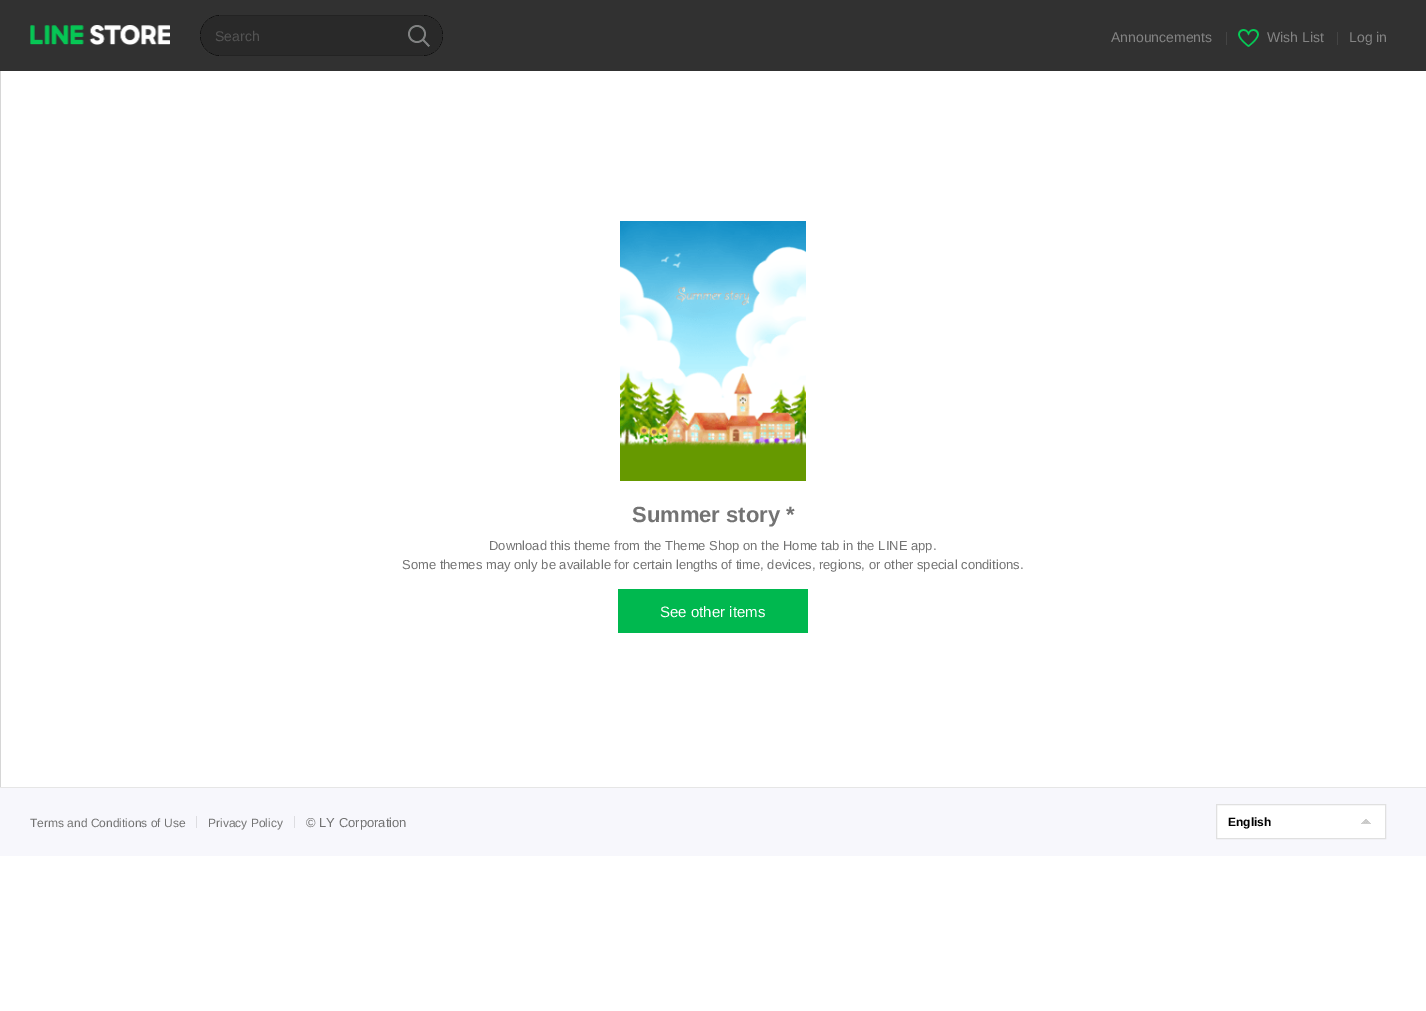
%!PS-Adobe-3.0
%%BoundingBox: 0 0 1426 1011
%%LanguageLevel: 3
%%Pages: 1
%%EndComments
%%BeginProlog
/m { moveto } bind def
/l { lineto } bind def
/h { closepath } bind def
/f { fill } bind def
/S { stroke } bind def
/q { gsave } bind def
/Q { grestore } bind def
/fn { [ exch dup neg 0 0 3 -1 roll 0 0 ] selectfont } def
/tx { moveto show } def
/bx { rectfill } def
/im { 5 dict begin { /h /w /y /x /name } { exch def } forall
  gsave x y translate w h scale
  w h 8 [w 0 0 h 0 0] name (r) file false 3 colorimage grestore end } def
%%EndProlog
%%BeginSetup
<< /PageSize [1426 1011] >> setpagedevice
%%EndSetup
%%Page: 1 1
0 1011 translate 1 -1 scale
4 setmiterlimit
1 setgray
0 0 1426 1011 bx
0.192 setgray
0 0 1426 71 bx
(image0.raw) 30 25 140 20 im
(image1.raw) 200 15 243 41 im
/LiberationSans-Regular 14 fn
0.329 setgray
(Search) 215 41 tx
(image2.raw) 408 25 22 22 im
0.518 setgray
(Announcements) 1111 42 tx
0.267 setgray
1226 32 1 13 bx
(image3.raw) 1238 29 21 18 im
0.518 setgray
(Wish List) 1267 42 tx
0.267 setgray
1337 32 1 13 bx
0.518 setgray
(Log in) 1349 42 tx
0.839 setgray
0 71 1 716 bx
(image4.raw) 620 221 186 260 im
/LiberationSans-Bold 22 fn
0.451 setgray
(Summer story *) 632 522 tx
/LiberationSans-Regular 13 fn
(Download this theme from the Theme Shop on the Home tab in the LINE app.) 489 550 tx
(Some themes may only be available for certain lengths of time, devices, regions, or other special conditions.) 402 569 tx
0 0.722 0.31 setrgbcolor
618 589 190 44 bx
/LiberationSans-Regular 15 fn
1 setgray
(See other items) 660 617 tx
0.969 0.969 0.988 setrgbcolor
0 788 1426 68 bx
0.902 setgray
0 787 1426 1 bx
/LiberationSans-Regular 12 fn
0.451 setgray
(Terms and Conditions of Use) 30 827 tx
0.867 0.867 0.882 setrgbcolor
196 816 1 12 bx
0.451 setgray
(Privacy Policy) 208 827 tx
0.867 0.867 0.882 setrgbcolor
294 816 1 12 bx
/LiberationSans-Regular 13 fn
0.451 setgray
(© LY Corporation) 306 827 tx
1 setgray
1216.5 804.5 m 1385.5 804.5 l 1385.5 838.5 l 1216.5 838.5 l h q f Q
0.878 setgray
S
/LiberationSans-Bold 12 fn
0 setgray
(English) 1228 826 tx
(image5.raw) 1361 819 10 5 im
showpage
%%EOF
